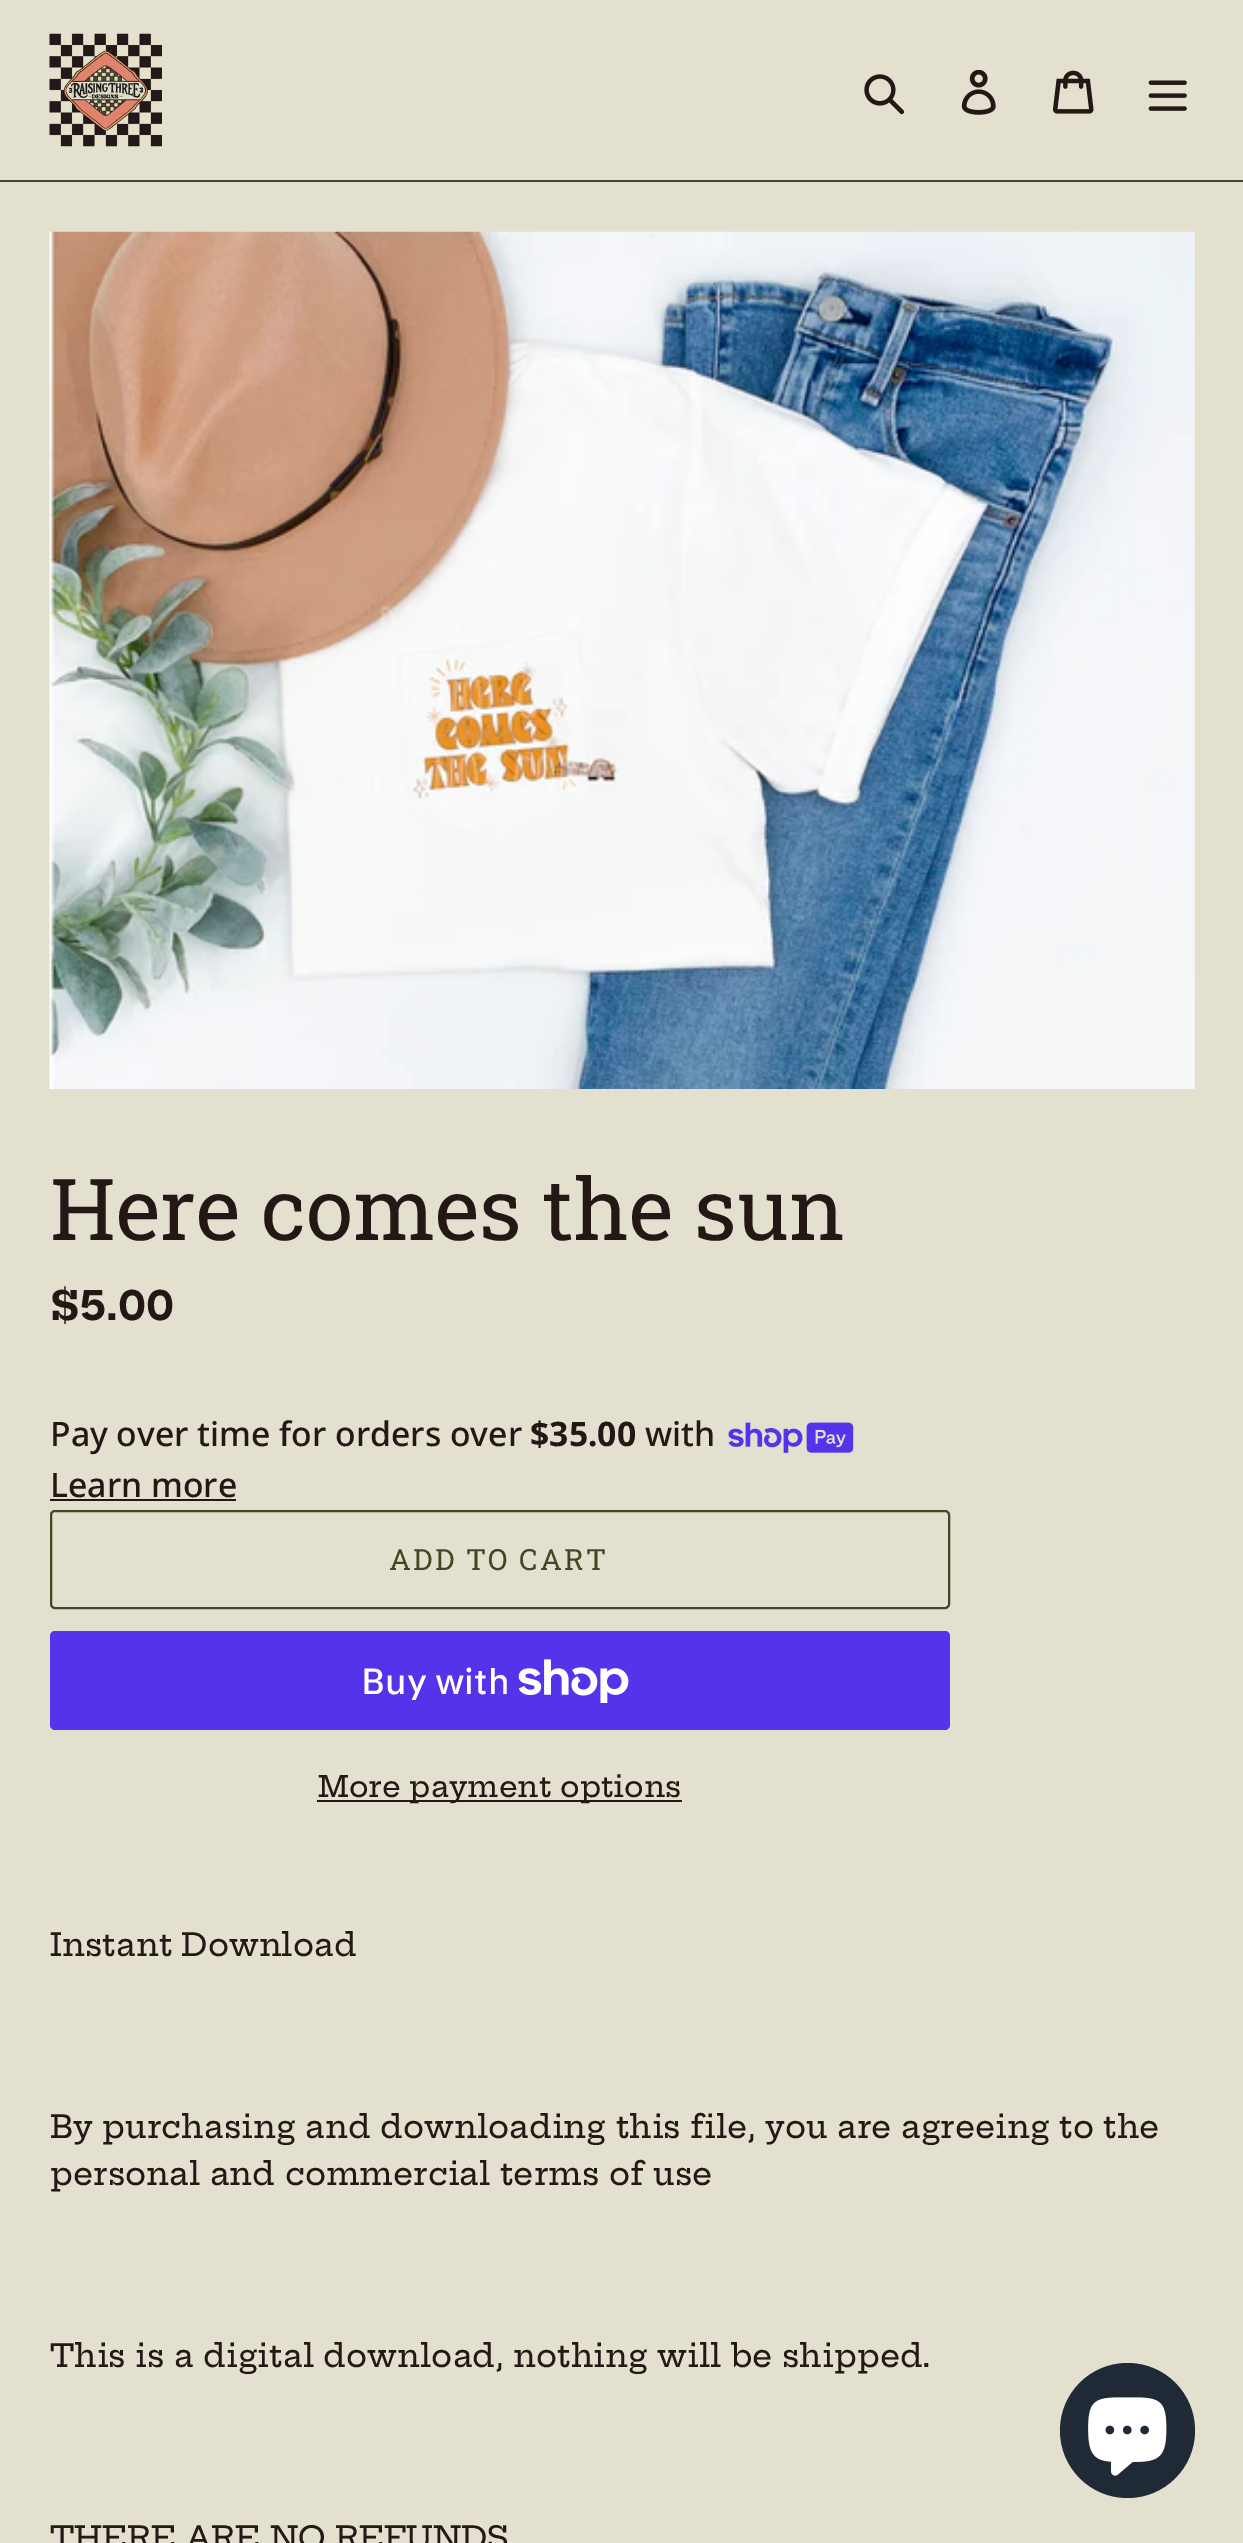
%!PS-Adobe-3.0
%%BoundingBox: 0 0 1243 2543
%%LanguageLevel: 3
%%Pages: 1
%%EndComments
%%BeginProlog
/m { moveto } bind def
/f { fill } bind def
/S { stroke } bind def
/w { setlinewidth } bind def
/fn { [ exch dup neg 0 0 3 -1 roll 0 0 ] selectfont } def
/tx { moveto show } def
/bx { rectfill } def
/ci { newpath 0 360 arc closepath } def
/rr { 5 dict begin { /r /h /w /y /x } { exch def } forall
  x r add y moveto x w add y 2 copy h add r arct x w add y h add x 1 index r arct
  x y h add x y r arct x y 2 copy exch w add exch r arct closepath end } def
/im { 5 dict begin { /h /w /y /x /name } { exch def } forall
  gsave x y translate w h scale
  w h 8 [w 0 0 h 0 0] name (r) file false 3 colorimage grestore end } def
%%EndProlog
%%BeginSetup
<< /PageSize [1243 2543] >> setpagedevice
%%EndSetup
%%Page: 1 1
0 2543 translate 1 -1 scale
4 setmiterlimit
0.89 0.878 0.816 setrgbcolor
0 0 1243 2543 bx
0.267 0.271 0.133 setrgbcolor
0 180 1243 2 bx
(image0.raw) 49 33 113 114 im
(image1.raw) 864 74 41 41 im
(image2.raw) 961 70 35 45 im
(image3.raw) 1053 70 41 44 im
(image4.raw) 1148 80 39 31 im
(image5.raw) 49 231 1146 858 im
/RobotoSlab-Regular 85.5 fn
0.141 0.094 0.086 setrgbcolor
(Here comes the sun) 50 1240 tx
/HeptaSlab-Bold 39.5 fn
($5.00) 50 1320 tx
/NotoSans-Medium 33.75 fn
(Pay over time for orders over) 50 1446 tx
/NotoSans-Bold 33.75 fn
($35.00) 530 1446 tx
/NotoSans-Medium 33.75 fn
(with) 645 1446 tx
(image6.raw) 728 1422 126 31 im
(Learn more) 50 1497 tx
50 1499 186 2 bx
0.267 0.271 0.133 setrgbcolor
2 w
51 1511 898 97 4 rr S
/RobotoSlab-Regular 29.25 fn
389 1570 m 2.25 0 (ADD TO CART) ashow
0.329 0.2 0.922 setrgbcolor
50 1631 900 99 5 rr f
/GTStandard-Medium 36 fn
1 setgray
(Buy with) 361 1694 tx
(image7.raw) 518 1659 111 44 im
0.141 0.094 0.086 setrgbcolor
317 1800 365 2 bx
/HeptaSlab-Medium 29.25 fn
(More payment options) 318 1797 tx
/HeptaSlab-Medium 31.5 fn
(Instant Download) 50 1956 tx
(By purchasing and downloading this file, you are agreeing to the) 50 2138 tx
(personal and commercial terms of use) 50 2185 tx
(This is a digital download, nothing will be shipped.) 50 2367 tx
(THERE ARE NO REFUNDS) 50 2549 tx
0.125 0.165 0.212 setrgbcolor
1127.5 2430.5 67.5 ci f
(image8.raw) 1088 2397 79 79 im
showpage
%%EOF
